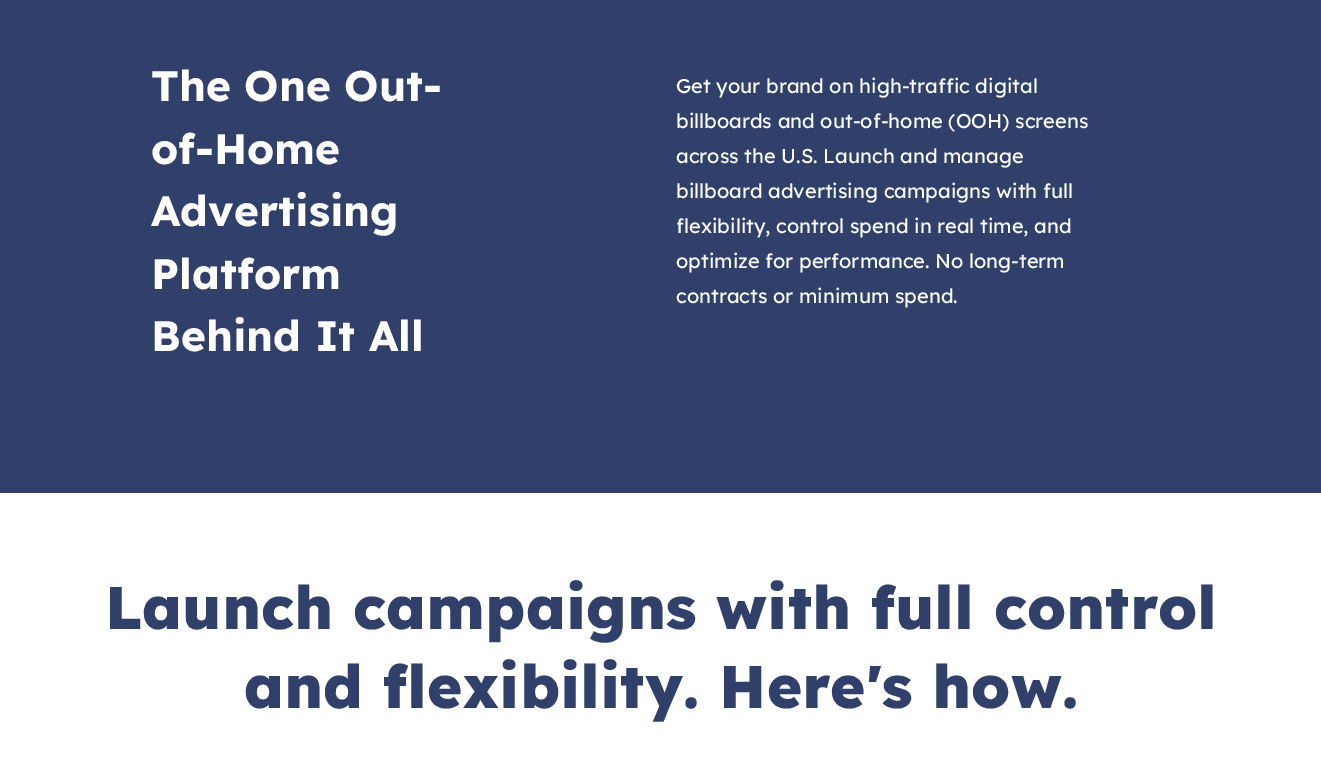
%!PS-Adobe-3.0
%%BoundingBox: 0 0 1321 766
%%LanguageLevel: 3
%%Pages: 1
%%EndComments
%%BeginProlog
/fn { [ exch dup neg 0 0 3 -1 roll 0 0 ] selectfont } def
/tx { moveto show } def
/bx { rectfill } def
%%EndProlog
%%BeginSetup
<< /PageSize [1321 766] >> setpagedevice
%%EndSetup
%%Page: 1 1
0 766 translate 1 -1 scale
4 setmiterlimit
1 setgray
0 0 1321 766 bx
0.188 0.251 0.416 setrgbcolor
0 0 1321 493 bx
/Lexend-Bold 42.5 fn
1 setgray
(The One Out-) 151 101 tx
(of-Home) 151 164 tx
(Advertising) 151 226 tx
(Platform) 151 289 tx
(Behind It All) 151 351 tx
/Lexend-Regular 20 fn
(Get your brand on high-traffic digital) 676 93 tx
(billboards and out-of-home \(OOH\) screens) 676 128 tx
(across the U.S. Launch and manage) 676 163 tx
(billboard advertising campaigns with full) 676 198 tx
(flexibility, control spend in real time, and) 676 233 tx
(optimize for performance. No long-term) 676 268 tx
(contracts or minimum spend.) 676 303 tx
/Lexend-ExtraBold 60 fn
0.188 0.251 0.416 setrgbcolor
(Launch campaigns with full control) 105 629 tx
(and flexibility. Here's how.) 244 708 tx
showpage
%%EOF
